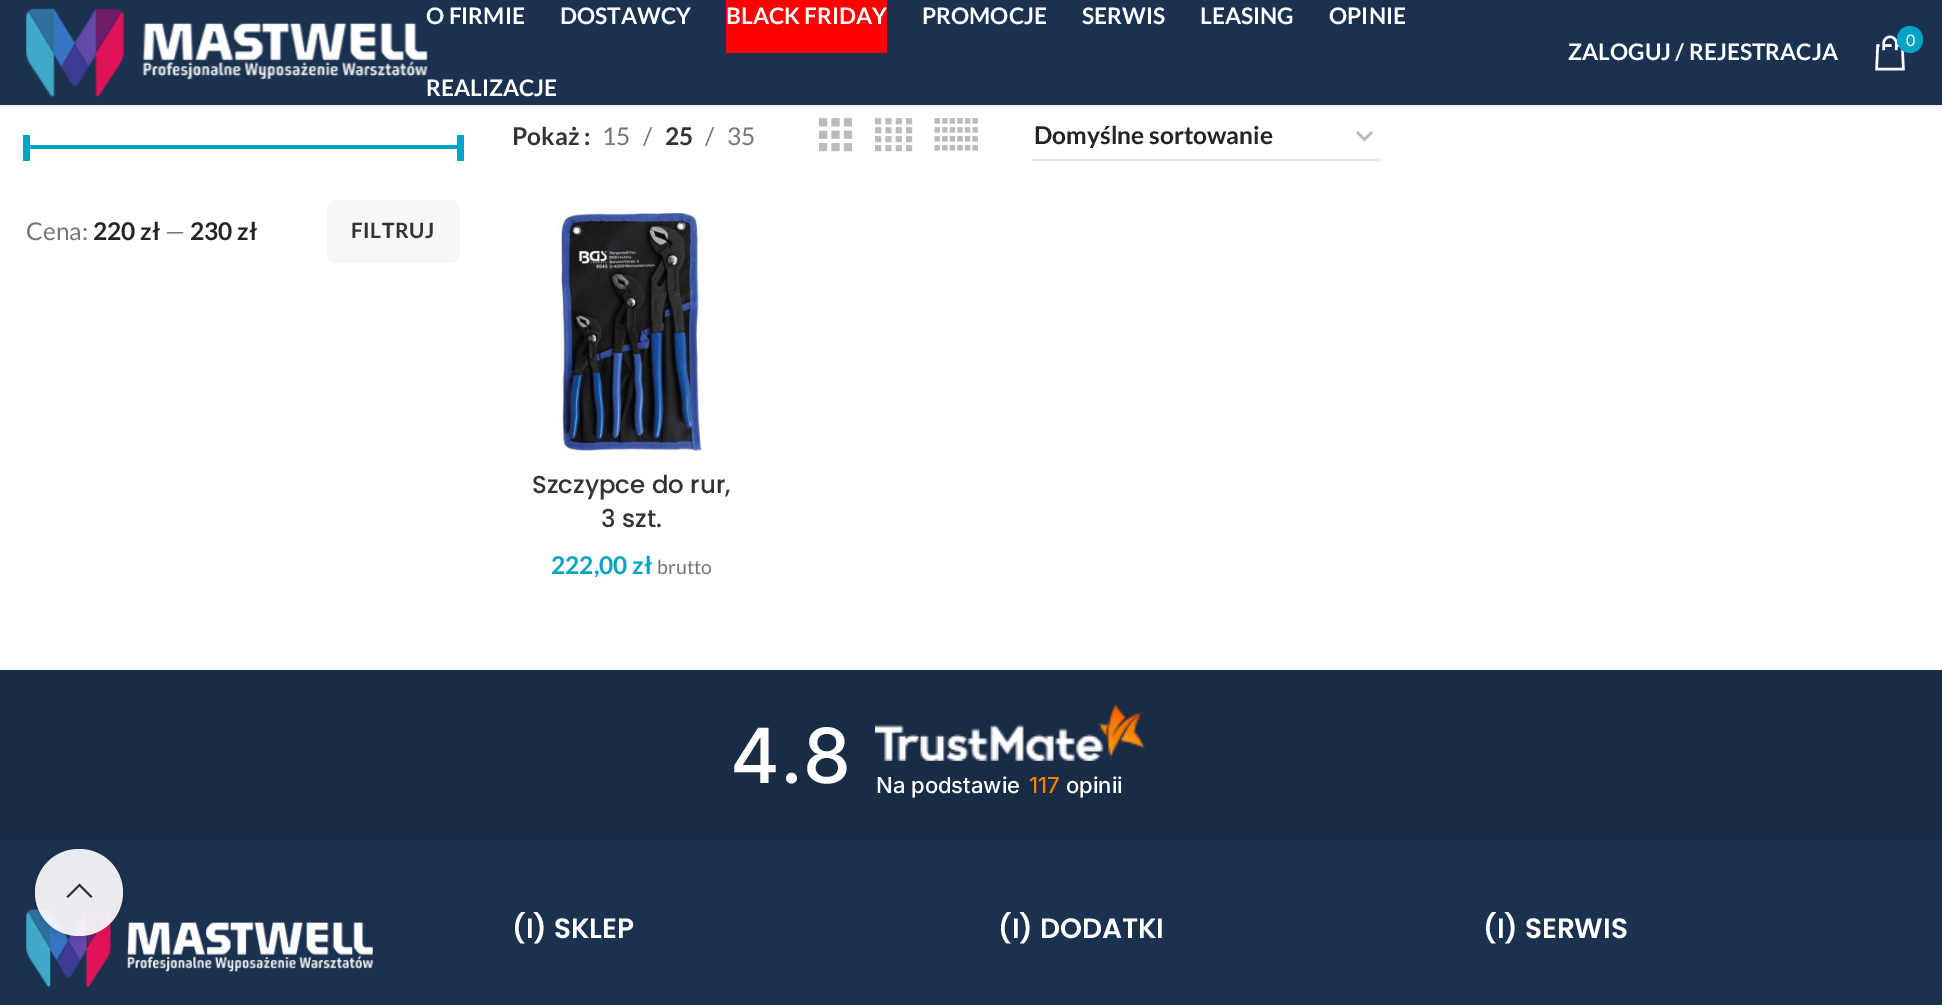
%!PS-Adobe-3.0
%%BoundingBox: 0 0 1942 1005
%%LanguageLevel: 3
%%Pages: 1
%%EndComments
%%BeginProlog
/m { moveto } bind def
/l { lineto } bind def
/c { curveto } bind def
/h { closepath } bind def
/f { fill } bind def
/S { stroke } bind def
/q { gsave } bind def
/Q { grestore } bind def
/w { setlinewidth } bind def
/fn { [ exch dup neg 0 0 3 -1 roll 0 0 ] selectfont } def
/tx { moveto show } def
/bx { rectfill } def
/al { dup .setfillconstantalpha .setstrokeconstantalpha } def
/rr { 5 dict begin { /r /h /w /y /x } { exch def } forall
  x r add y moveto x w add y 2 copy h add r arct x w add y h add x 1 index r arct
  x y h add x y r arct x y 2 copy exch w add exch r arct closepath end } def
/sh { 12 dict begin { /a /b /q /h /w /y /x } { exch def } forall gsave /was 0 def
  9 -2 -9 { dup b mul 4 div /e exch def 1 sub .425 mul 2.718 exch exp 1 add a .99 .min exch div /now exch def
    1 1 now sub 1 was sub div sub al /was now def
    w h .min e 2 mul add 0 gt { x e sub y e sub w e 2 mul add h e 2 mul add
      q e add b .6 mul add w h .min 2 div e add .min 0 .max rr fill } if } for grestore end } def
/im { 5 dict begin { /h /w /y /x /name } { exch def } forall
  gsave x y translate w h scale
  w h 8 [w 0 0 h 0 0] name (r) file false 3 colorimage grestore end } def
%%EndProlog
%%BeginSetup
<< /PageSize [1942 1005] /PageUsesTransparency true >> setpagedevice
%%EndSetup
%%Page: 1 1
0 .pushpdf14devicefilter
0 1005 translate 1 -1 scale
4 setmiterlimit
1 setgray
0 0 1942 1005 bx
0 setgray
0 2 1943 105 0 2.5 0.1 sh
0.102 0.192 0.314 setrgbcolor
0 0 1942 105 bx
(image0.raw) 26 8 402 89 im
/Lato-Bold 22.75 fn
1 setgray
(O FIRMIE) 426 24 tx
(DOSTAWCY) 560 24 tx
1 0 0 setrgbcolor
726 0 161 53 bx
1 setgray
(BLACK FRIDAY) 726 24 tx
(PROMOCJE) 922 24 tx
(SERWIS) 1082 24 tx
(LEASING) 1200 24 tx
(OPINIE) 1329 24 tx
(REALIZACJE) 426 96 tx
(image1.raw) 1875 35 30 36 im
0 0.639 0.776 setrgbcolor
1897 26 26 27 13 rr f
/Lato-Regular 16 fn
1 setgray
(0) 1906 46 tx
/Lato-Bold 22.75 fn
(ZALOGUJ / REJESTRACJA) 1568 60 tx
0 0.639 0.776 setrgbcolor
26 145 434 4 bx
23 135 7 26 bx
457 135 7 26 bx
/Lato-Regular 24.5 fn
0.463 setgray
(Cena:) 26 240 tx
/Lato-Bold 24.5 fn
0.141 setgray
(220 zł) 93 240 tx
/Lato-Regular 24.5 fn
0.463 setgray
(—) 165 240 tx
/Lato-Bold 24.5 fn
0.141 setgray
(230 zł) 190 240 tx
0.969 setgray
327 200 133 63 9 rr f
/Lato-Bold 21 fn
0.2 setgray
351 238 m 0.5 0 (FILTRUJ) ashow
/Lato-Bold 24.5 fn
(Pokaż :) 512 145 tx
/Lato-Regular 24.5 fn
0.463 setgray
(15) 602 145 tx
(/) 643 145 tx
/Lato-Bold 24.5 fn
0.2 setgray
(25) 665 145 tx
/Lato-Regular 24.5 fn
0.463 setgray
(/) 705 145 tx
(35) 727 145 tx
(image2.raw) 819 118 34 34 im
(image3.raw) 875 118 38 34 im
(image4.raw) 934 118 44 33 im
0.733 setgray
2.5 w
1357 132 m 1364.5 139.5 l 1372 132 l S
0.902 setgray
1031 159 350 2 bx
/Lato-Bold 24.5 fn
0.141 setgray
(Domyślne sortowanie) 1034 144 tx
(image5.raw) 557 213 146 238 im
/Poppins-Medium 24.5 fn
0.2 setgray
(Szczypce do rur,) 532 493 tx
(3 szt.) 601 527 tx
/Lato-Bold 24.5 fn
0 0.639 0.776 setrgbcolor
(222,00 zł) 551 574 tx
/Lato-Regular 19.5 fn
0.463 setgray
(brutto) 657 574 tx
0.098 0.173 0.275 setrgbcolor
0 670 1942 170 bx
/Inter-Medium 76 fn
1 setgray
(4.8) 730 783 tx
(image6.raw) 875 704 270 57 im
/Inter-Medium 22 fn
(Na podstawie) 876 793 tx
1 0.502 0 setrgbcolor
(117) 1029 793 tx
1 setgray
(opinii) 1066 793 tx
0.102 0.192 0.314 setrgbcolor
0 840 1942 165 bx
(image7.raw) 26 909 347 78 im
/Poppins-SemiBold 28 fn
1 setgray
(\(I\) SKLEP) 512 938 tx
(\(I\) DODATKI) 998 938 tx
(\(I\) SERWIS) 1483 938 tx
q
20 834 m 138 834 l 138 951 l 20 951 l h 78.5 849 m 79.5 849 l 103.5 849 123 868.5 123 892.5 c 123 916.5 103.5 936 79.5 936 c 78.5 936 l 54.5 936 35 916.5 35 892.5 c 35 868.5 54.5 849 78.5 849 c h eoclip newpath
0 setgray
35 849 88 87 43.5 4.5 0.17 sh
Q
0.9 al
35 849 88 87 43.5 rr f
1 al
0.2 setgray
91 898 m 92.5 896.5 l 79.5 883.5 l 66.5 896.5 l 68 898 l 79.5 886.5 l h f
.poppdf14devicefilter showpage
%%EOF
